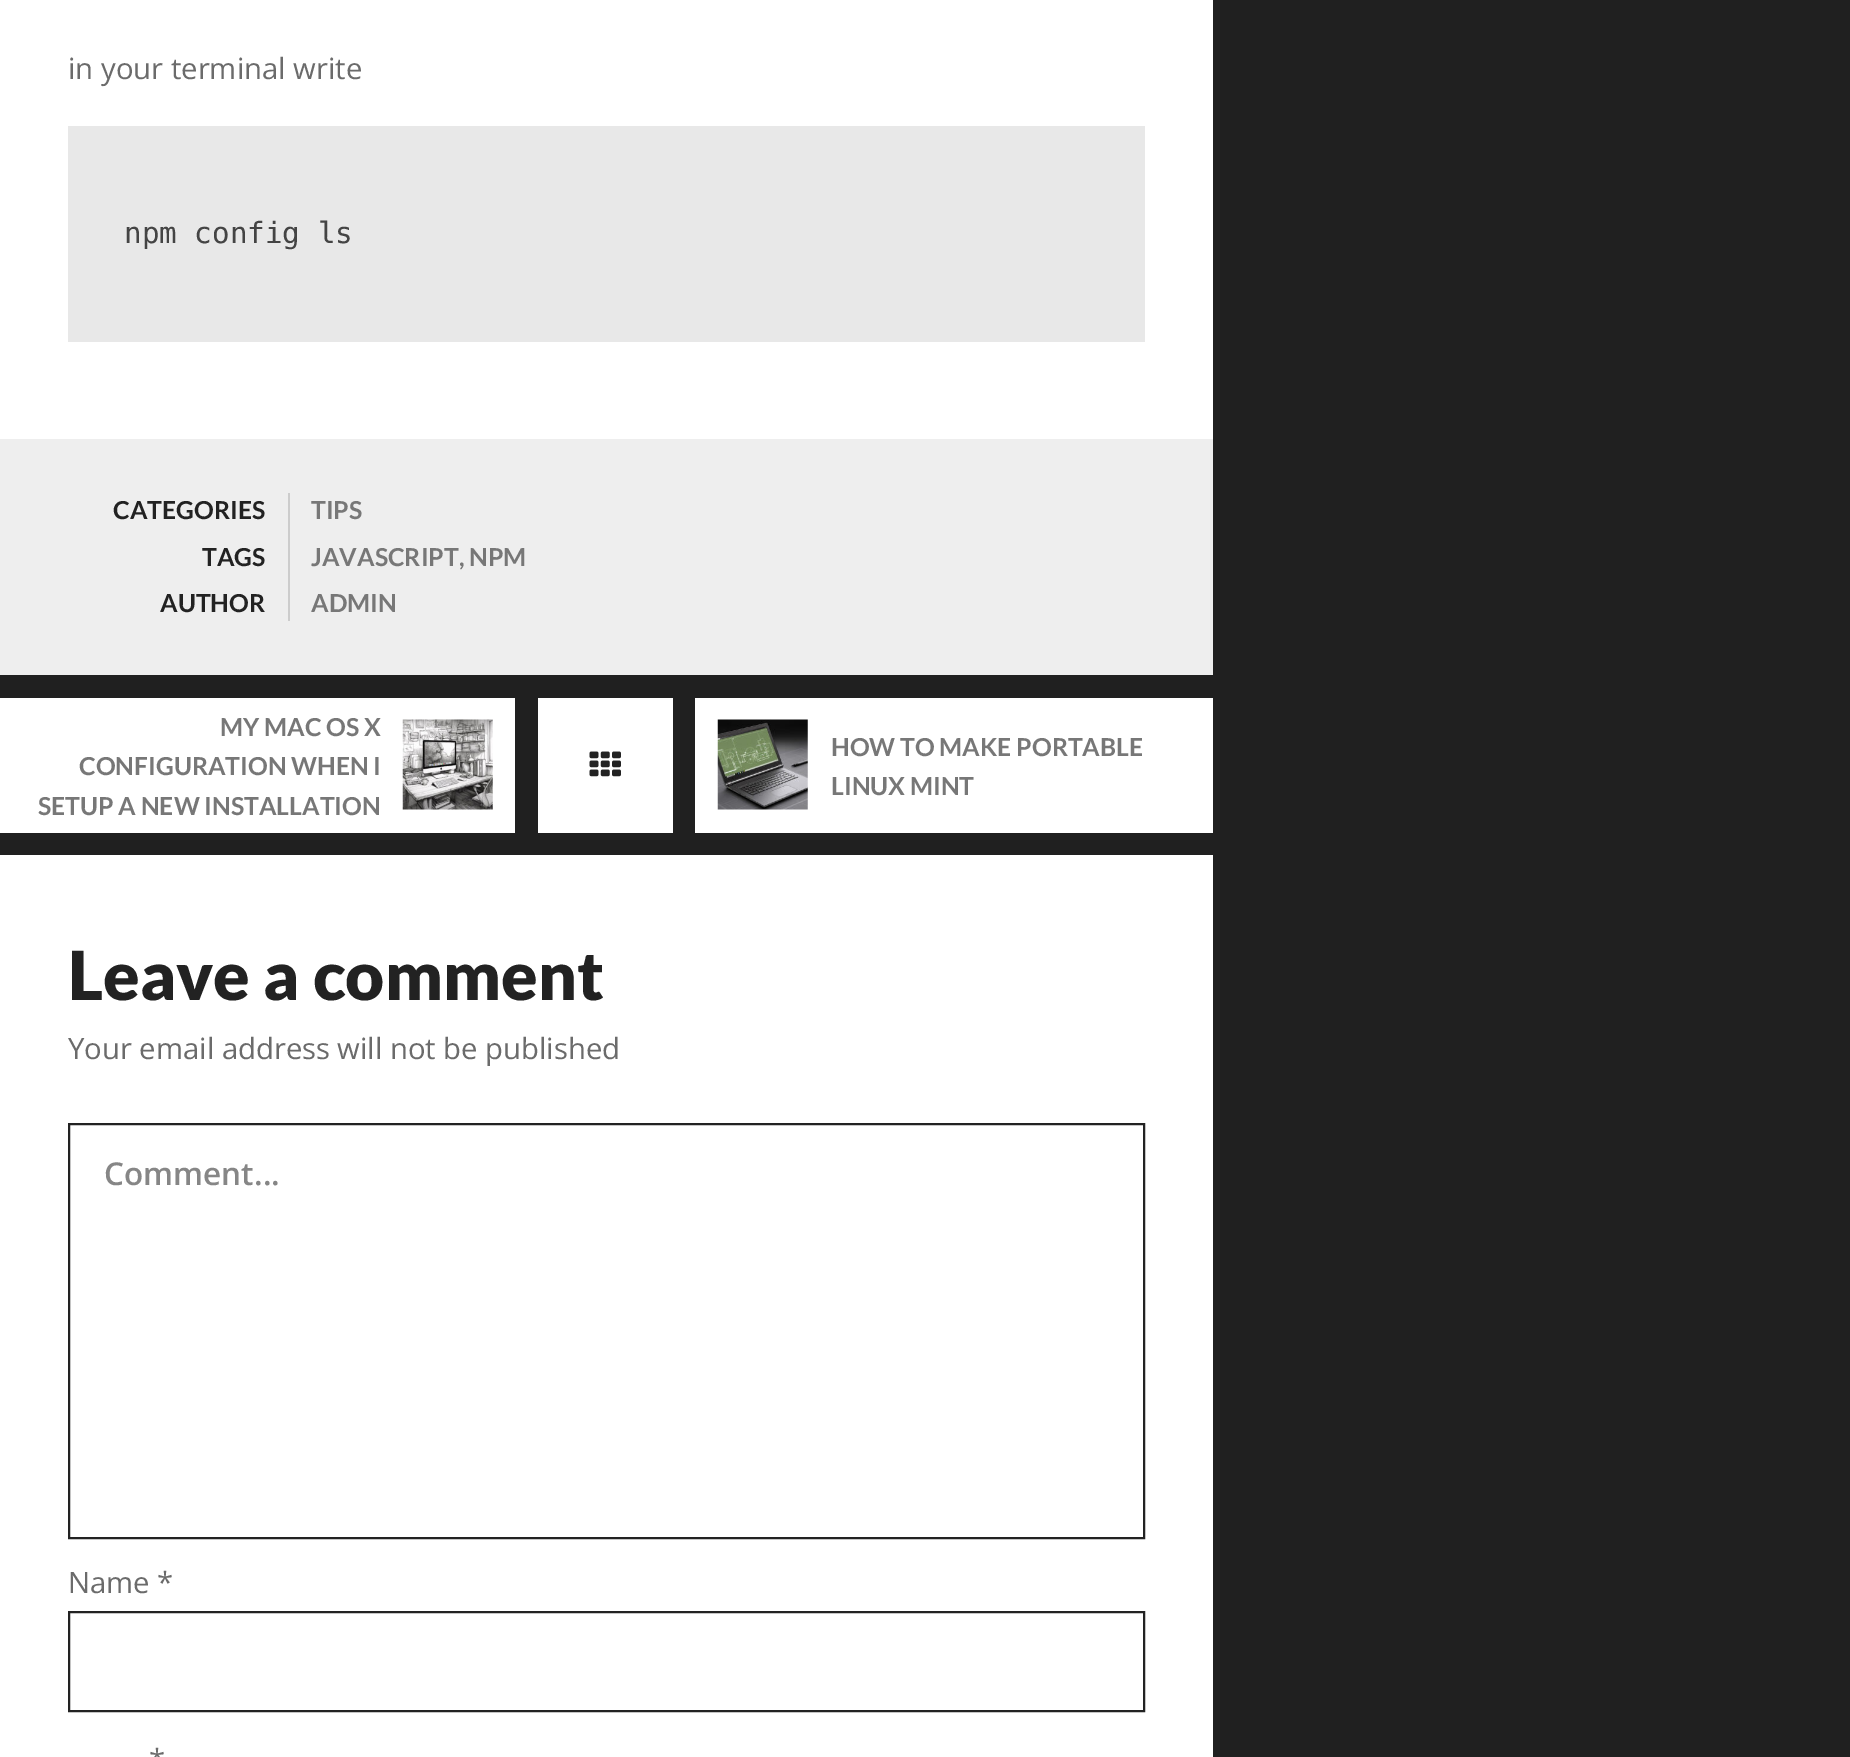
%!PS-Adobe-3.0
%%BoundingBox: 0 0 1850 1757
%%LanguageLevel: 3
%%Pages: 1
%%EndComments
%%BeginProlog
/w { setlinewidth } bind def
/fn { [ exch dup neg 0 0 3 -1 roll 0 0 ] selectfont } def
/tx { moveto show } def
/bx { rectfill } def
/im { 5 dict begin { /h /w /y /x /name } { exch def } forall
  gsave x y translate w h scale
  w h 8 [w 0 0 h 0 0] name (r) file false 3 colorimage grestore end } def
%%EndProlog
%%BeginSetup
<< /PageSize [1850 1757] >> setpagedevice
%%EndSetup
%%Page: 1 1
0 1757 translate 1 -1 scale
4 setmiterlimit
0.125 setgray
0 0 1850 1757 bx
1 setgray
0 0 1213 439 bx
/OpenSans-Regular 29.25 fn
0.42 setgray
(in your terminal write) 68 79 tx
0.91 setgray
68 126 1077 216 bx
/DejaVuSansMono-Regular 29.25 fn
0.267 setgray
(npm config ls) 124 243 tx
0.933 setgray
0 439 1213 236 bx
/Lato-Bold 24.75 fn
0.133 setgray
(CATEGORIES) 113 519 tx
0.8 setgray
288 493 2 128 bx
0.467 setgray
(TIPS) 311 519 tx
0.133 setgray
(TAGS) 202 566 tx
0.467 setgray
(JAVASCRIPT, NPM) 311 566 tx
0.133 setgray
(AUTHOR) 160 612 tx
0.467 setgray
(ADMIN) 311 612 tx
1 setgray
0 698 515 135 bx
0.467 setgray
(MY MAC OS X) 220 736 tx
(CONFIGURATION WHEN I) 79 775 tx
(SETUP A NEW INSTALLATION) 38 815 tx
(image0.raw) 402 719 91 91 im
1 setgray
538 698 135 135 bx
(image1.raw) 589 751 32 26 im
695 698 518 135 bx
(image2.raw) 717 719 91 91 im
0.467 setgray
(HOW TO MAKE PORTABLE) 831 756 tx
(LINUX MINT) 831 795 tx
1 setgray
0 855 1213 902 bx
/Lato-Black 67.5 fn
0.133 setgray
(Leave a comment) 68 1000 tx
/OpenSans-Regular 29.25 fn
0.42 setgray
(Your email address will not be published) 68 1059 tx
0.133 setgray
2 w
69 1124 1075 414 rectstroke
/OpenSans-SemiBold 31.5 fn
0.525 setgray
(Comment...) 104 1185 tx
/OpenSans-Regular 29.25 fn
0.42 setgray
(Name *) 68 1593 tx
0.133 setgray
69 1612 1075 99 rectstroke
0.42 setgray
(*) 149 1770 tx
showpage
%%EOF
